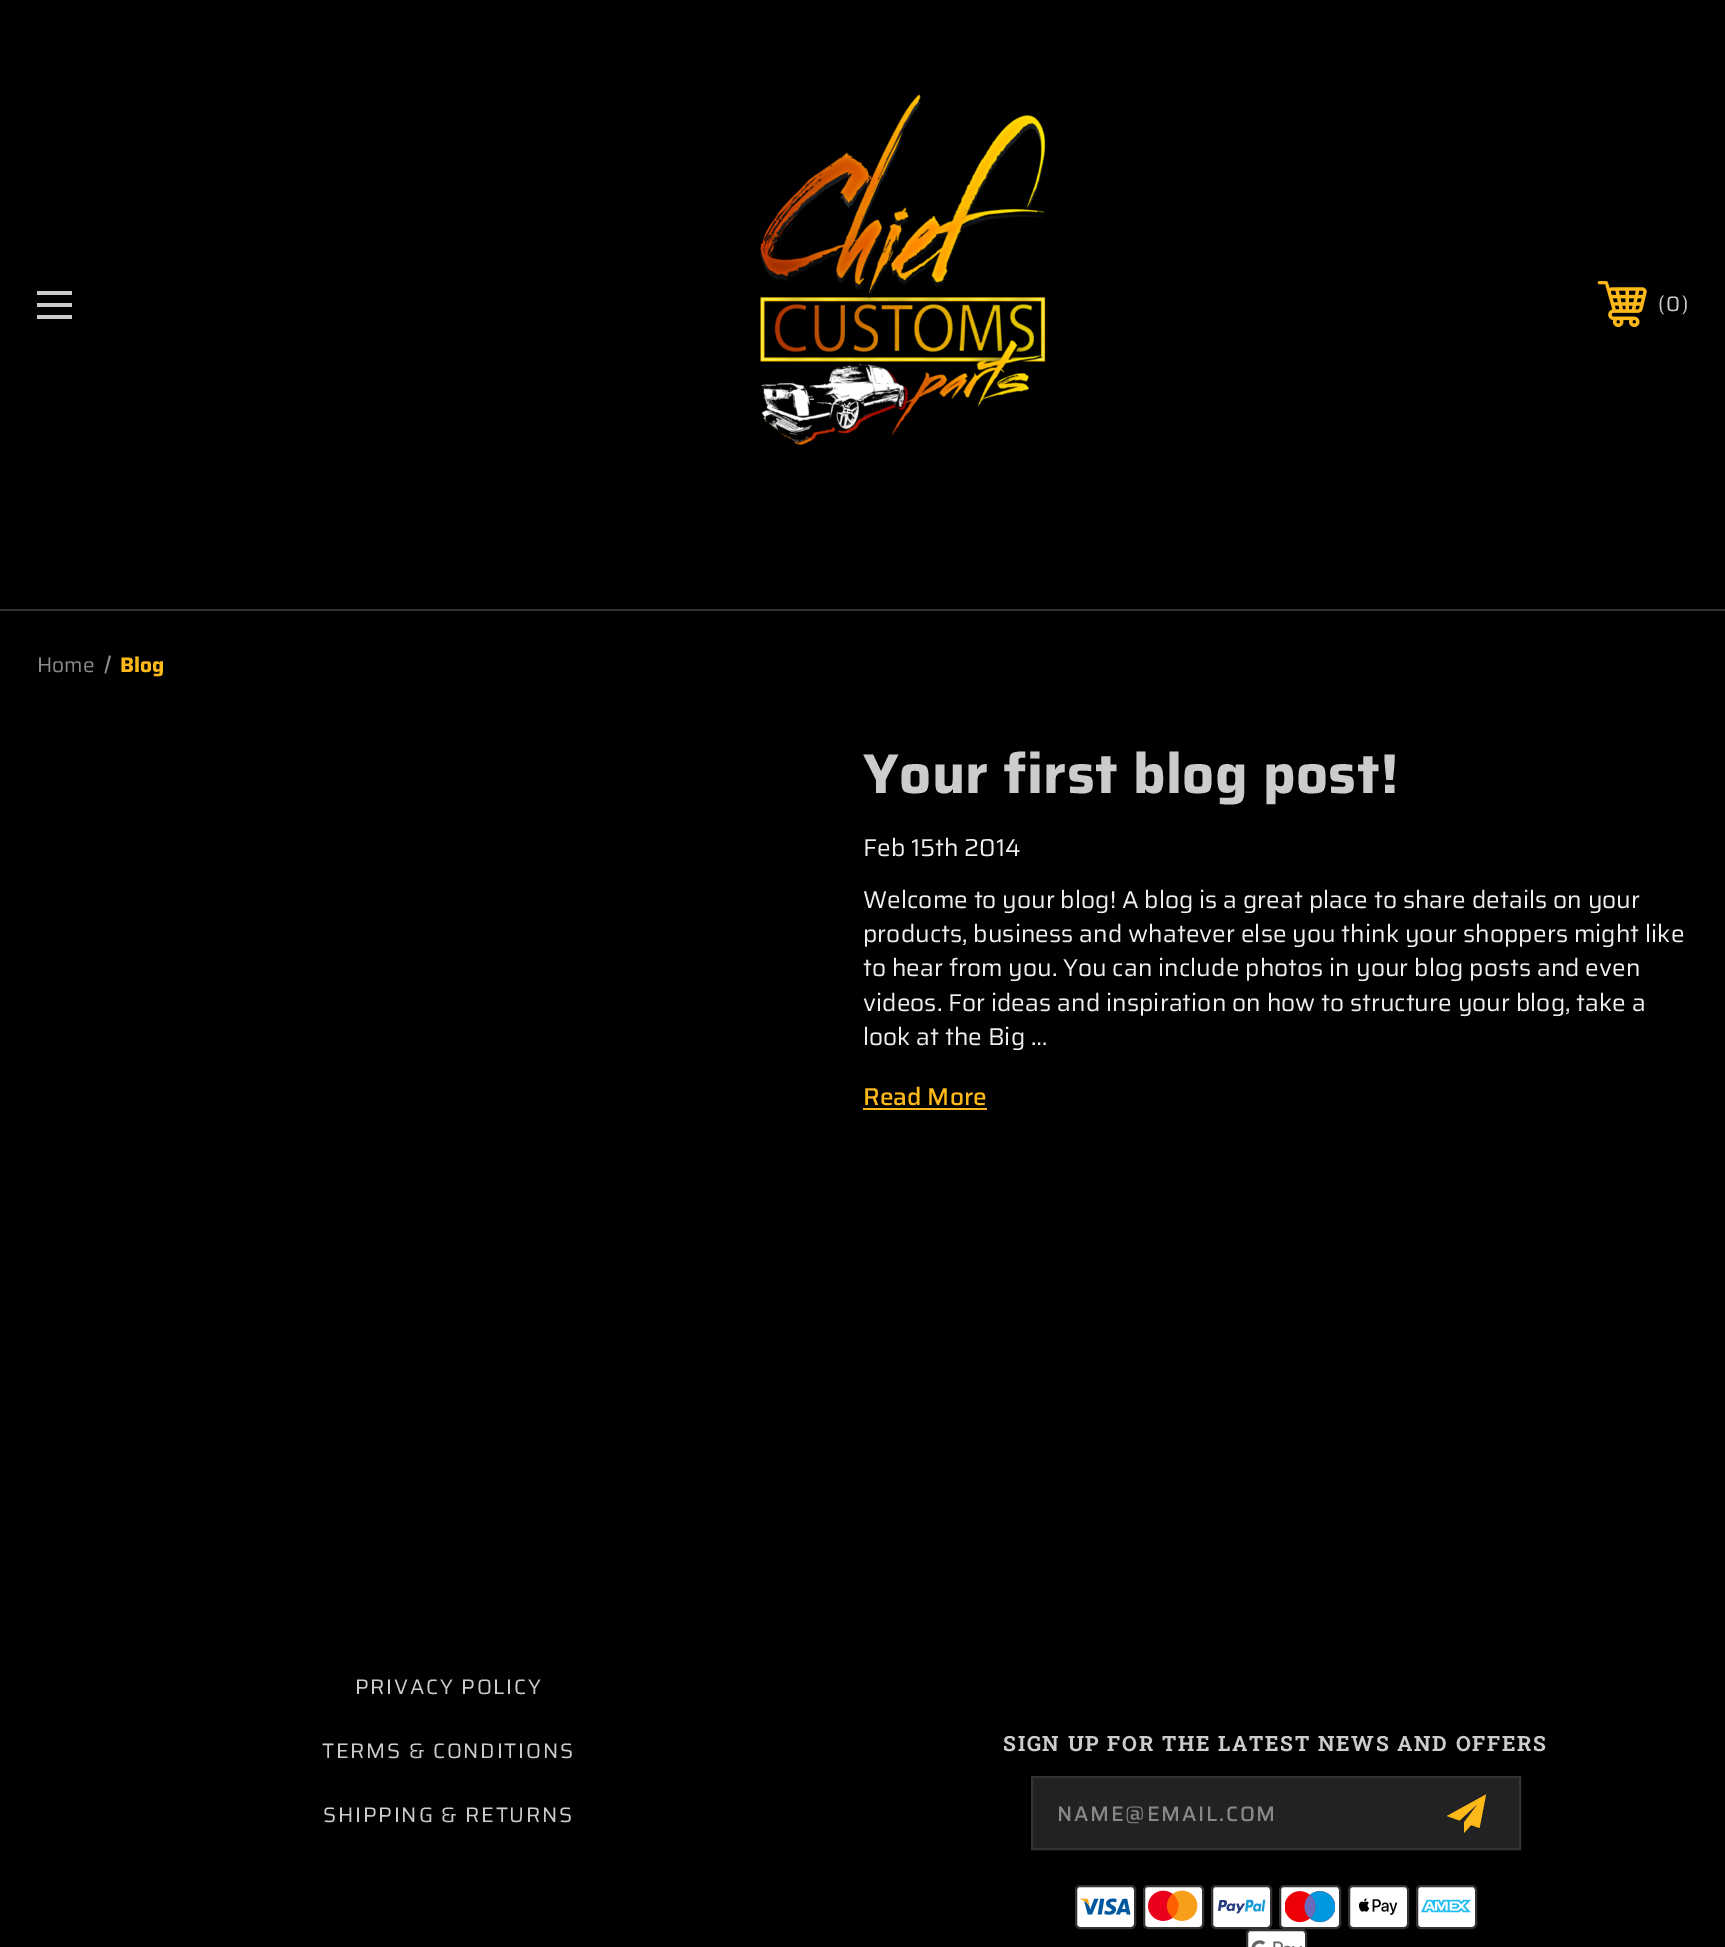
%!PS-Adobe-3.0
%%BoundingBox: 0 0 1725 1947
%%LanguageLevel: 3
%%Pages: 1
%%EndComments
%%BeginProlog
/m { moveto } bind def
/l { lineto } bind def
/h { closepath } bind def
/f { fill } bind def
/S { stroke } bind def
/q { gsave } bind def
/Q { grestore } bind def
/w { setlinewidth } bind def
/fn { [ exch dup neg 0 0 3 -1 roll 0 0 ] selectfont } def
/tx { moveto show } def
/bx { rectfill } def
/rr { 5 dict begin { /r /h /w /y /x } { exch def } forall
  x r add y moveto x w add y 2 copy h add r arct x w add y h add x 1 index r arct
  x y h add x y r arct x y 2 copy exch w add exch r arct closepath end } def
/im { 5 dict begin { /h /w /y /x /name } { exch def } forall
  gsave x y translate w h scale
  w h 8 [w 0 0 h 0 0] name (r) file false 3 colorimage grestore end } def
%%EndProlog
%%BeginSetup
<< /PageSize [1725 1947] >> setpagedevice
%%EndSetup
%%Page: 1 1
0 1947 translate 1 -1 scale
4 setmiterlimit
0 setgray
0 0 1725 1947 bx
0.2 setgray
0 609 1725 2 bx
0.8 setgray
37 303 35 4 bx
37 291 35 4 bx
37 315 35 4 bx
(image0.raw) 760 94 286 352 im
(image1.raw) 1597 281 50 46 im
/Saira-Regular 21 fn
(\() 1658 311 tx
(0) 1666 311 tx
(\)) 1682 311 tx
0.533 setgray
(Home) 37 672 tx
109 655.5 m 111 656 l 106 673.5 l 104.5 673 l h f
/Saira-Bold 21 fn
0.992 0.722 0.098 setrgbcolor
(Blog) 120 672 tx
/Saira-Bold 56 fn
0.8 setgray
863 793 m 0.4 0 (Your first blog post!) ashow
/Saira-Regular 24.5 fn
0.933 setgray
(Feb 15th 2014) 863 856 tx
(Welcome to your blog! A blog is a great place to share details on your) 863 908 tx
(products, business and whatever else you think your shoppers might like) 863 942 tx
(to hear from you. You can include photos in your blog posts and even) 863 976 tx
(videos. For ideas and inspiration on how to structure your blog, take a) 863 1011 tx
(look at the Big …) 863 1045 tx
/Saira-Medium 24.5 fn
0.992 0.722 0.098 setrgbcolor
(Read More) 863 1105 tx
863 1108 124 2 bx
/Saira-Regular 21 fn
0.8 setgray
355 1694 m 1.75 0 (PRIVACY POLICY) ashow
322 1758 m 1.75 0 (TERMS & CONDITIONS) ashow
323 1822 m 1.75 0 (SHIPPING & RETURNS) ashow
/RobotoSlab-Bold 21 fn
1003 1751 m 1.75 0 (SIGN UP FOR THE LATEST NEWS AND OFFERS) ashow
0.133 setgray
1032 1777 m 1520 1777 l 1520 1849 l 1032 1849 l h q f Q
0.2 setgray
2 w
S
/Saira-Medium 21 fn
0.533 setgray
1057 1821 m 1.75 0 (NAME@EMAIL.COM) ashow
0.992 0.722 0.098 setrgbcolor
1486 1794.5 m 1447 1816 l 1459.5 1820.5 l 1478.5 1803 l 1464 1822.5 l 1464 1833 l 1471 1825 l 1479.5 1828 l h f
1 setgray
1076 1886 59 42 4 rr q f Q
0.2 setgray
S
(image2.raw) 1080 1898 51 17 im
1 setgray
1144 1886 59 42 4 rr q f Q
0.2 setgray
S
(image3.raw) 1148 1890 50 31 im
1 setgray
1212 1886 59 42 4 rr q f Q
0.2 setgray
S
(image4.raw) 1218 1899 48 15 im
1 setgray
1280 1886 60 42 4 rr q f Q
0.2 setgray
S
(image5.raw) 1285 1891 50 32 im
1 setgray
1349 1886 59 42 4 rr q f Q
0.2 setgray
S
(image6.raw) 1358 1898 40 17 im
1 setgray
1417 1886 59 42 4 rr q f Q
0.2 setgray
S
(image7.raw) 1421 1899 50 14 im
1 setgray
1247 1930 59 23 4 rr q f Q
0.2 setgray
S
(image8.raw) 1251 1940 51 7 im
showpage
%%EOF
